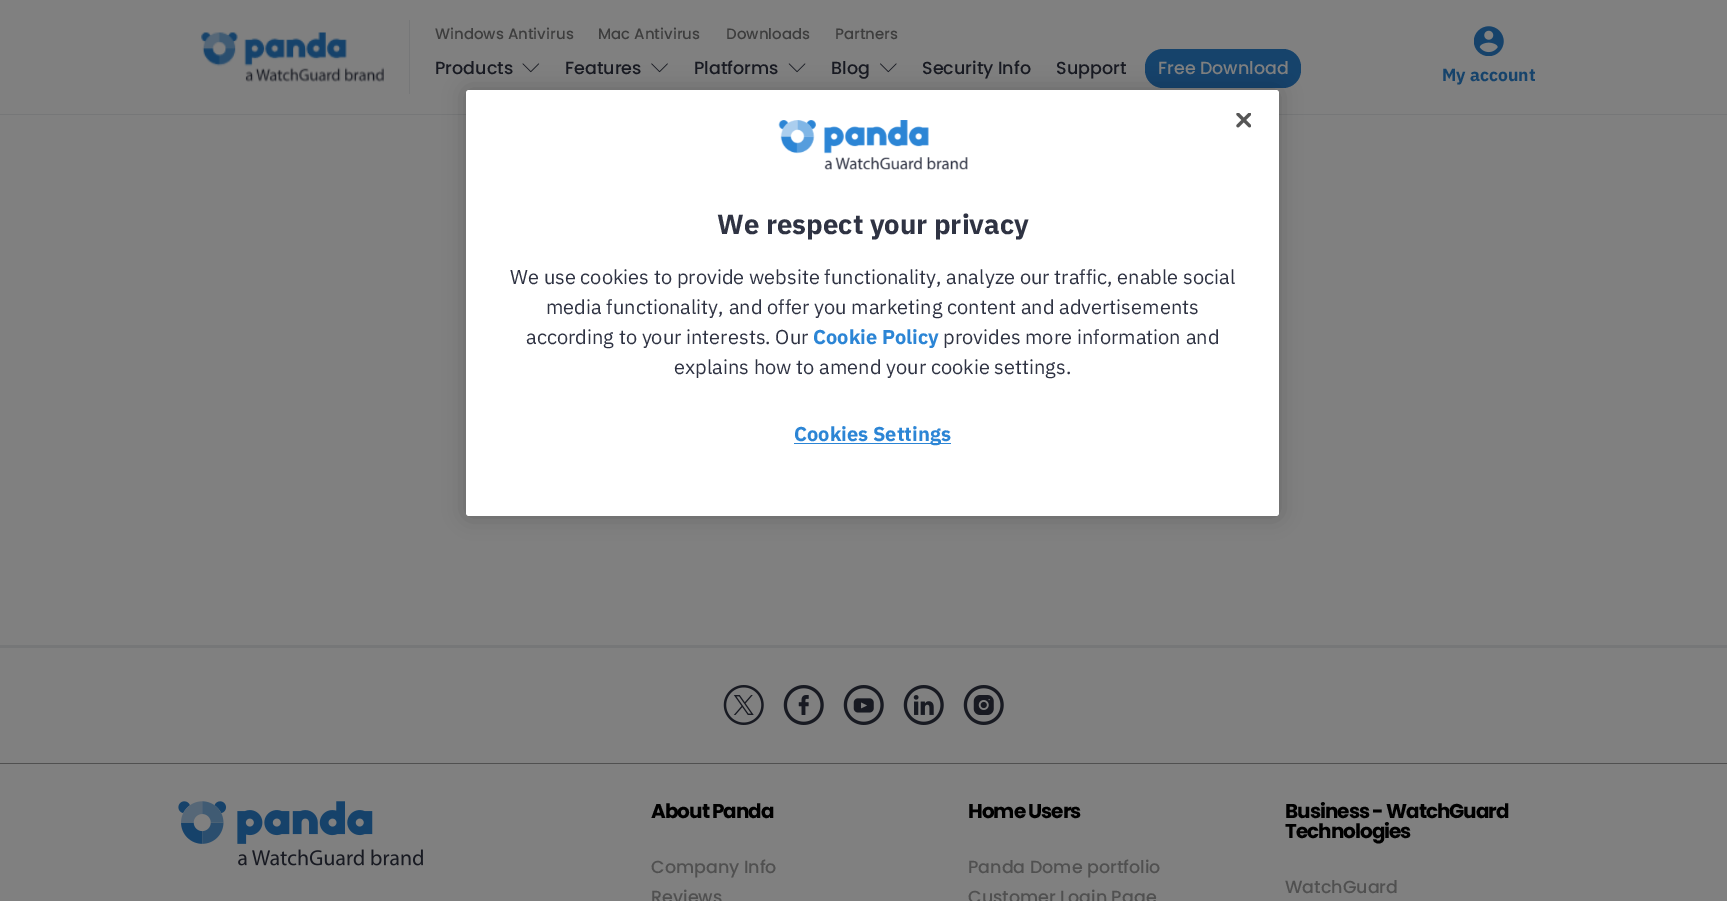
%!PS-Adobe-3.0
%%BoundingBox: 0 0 1727 901
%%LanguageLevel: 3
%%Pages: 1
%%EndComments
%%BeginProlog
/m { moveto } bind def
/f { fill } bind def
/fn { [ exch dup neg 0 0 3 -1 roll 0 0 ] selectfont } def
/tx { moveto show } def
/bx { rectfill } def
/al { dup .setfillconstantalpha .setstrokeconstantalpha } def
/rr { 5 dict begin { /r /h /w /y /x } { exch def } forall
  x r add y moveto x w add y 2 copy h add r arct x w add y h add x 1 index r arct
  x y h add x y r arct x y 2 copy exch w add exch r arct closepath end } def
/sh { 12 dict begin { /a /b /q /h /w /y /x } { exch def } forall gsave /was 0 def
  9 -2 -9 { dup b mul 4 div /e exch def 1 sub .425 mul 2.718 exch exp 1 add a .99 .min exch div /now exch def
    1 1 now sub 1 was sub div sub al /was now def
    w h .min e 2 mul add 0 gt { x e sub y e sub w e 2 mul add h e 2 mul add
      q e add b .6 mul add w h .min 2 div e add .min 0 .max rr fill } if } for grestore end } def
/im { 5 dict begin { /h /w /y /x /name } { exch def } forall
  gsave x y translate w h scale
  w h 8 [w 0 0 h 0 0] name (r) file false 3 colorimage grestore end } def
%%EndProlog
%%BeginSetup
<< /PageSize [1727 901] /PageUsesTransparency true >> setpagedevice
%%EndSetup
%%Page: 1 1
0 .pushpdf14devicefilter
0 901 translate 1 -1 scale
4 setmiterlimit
0.502 setgray
0 0 1727 901 bx
0.463 0.467 0.471 setrgbcolor
0 114 1727 1 bx
409 20 1 74 bx
(image0.raw) 201 32 183 50 im
/Poppins-Medium 15 fn
0.239 setgray
(Windows Antivirus) 435 39 tx
(Mac Antivirus) 598 39 tx
(Downloads) 726 39 tx
(Partners) 835 39 tx
/Poppins-Medium 17.5 fn
0.094 0.102 0.133 setrgbcolor
(Products) 435 74 tx
(image1.raw) 522 63 18 10 im
(Features) 565 74 tx
(image2.raw) 651 63 17 10 im
(Platforms) 694 74 tx
(image3.raw) 788 63 18 10 im
(Blog) 831 74 tx
(image4.raw) 880 63 17 10 im
(Security Info) 922 74 tx
(Support) 1056 74 tx
0.086 0.263 0.42 setrgbcolor
1145 49 156 39 18 rr f
0.502 setgray
(Free Download) 1158 74 tx
(image5.raw) 1474 26 30 30 im
/IBMPlexSans-Bold 17.5 fn
0.086 0.263 0.42 setrgbcolor
(My account) 1442 81 tx
0 setgray
466 90 813 426 3 11 0.2 sh
1 setgray
466 90 813 426 3 rr f
(image6.raw) 1236 113 15 15 im
(image7.raw) 778 120 190 50 im
/IBMPlexSans-Bold 27.5 fn
0.184 0.2 0.263 setrgbcolor
(We respect your privacy) 717 234 tx
/IBMPlexSans-Regular 20 fn
(We use cookies to provide website functionality, analyze our traffic, enable social) 510 284 tx
(media functionality, and offer you marketing content and advertisements) 546 314 tx
(according to your interests. Our) 526 344 tx
/IBMPlexSans-Bold 20 fn
0.173 0.522 0.835 setrgbcolor
(Cookie Policy) 813 344 tx
/IBMPlexSans-Regular 20 fn
0.184 0.2 0.263 setrgbcolor
(provides more information and) 943 344 tx
(explains how to amend your cookie settings.) 674 374 tx
0.173 0.522 0.835 setrgbcolor
794 443 157 1 bx
/IBMPlexSans-Bold 20 fn
(Cookies Settings) 794 441 tx
0.463 0.467 0.471 setrgbcolor
0 645 1727 3 bx
(image8.raw) 723 685 41 40 im
(image9.raw) 783 685 41 40 im
(image10.raw) 843 685 41 40 im
(image11.raw) 903 685 41 40 im
(image12.raw) 963 685 41 40 im
0.314 setgray
0 763 1727 1 bx
(image13.raw) 178 801 245 65 im
/Poppins-Bold 20 fn
0 setgray
651 818 m -1 0 (About Panda) ashow
/Poppins-Medium 17.5 fn
0.314 setgray
(Company Info) 651 873 tx
(Reviews) 651 903 tx
/Poppins-Bold 20 fn
0 setgray
968 818 m -1 0 (Home Users) ashow
/Poppins-Medium 17.5 fn
0.314 setgray
(Panda Dome portfolio) 968 873 tx
(Customer Login Page) 968 903 tx
/Poppins-Bold 20 fn
0 setgray
1285 818 m -1 0 (Business - WatchGuard) ashow
1285 838 m -1 0 (Technologies) ashow
/Poppins-Medium 17.5 fn
0.314 setgray
(WatchGuard) 1285 893 tx
.poppdf14devicefilter showpage
%%EOF
